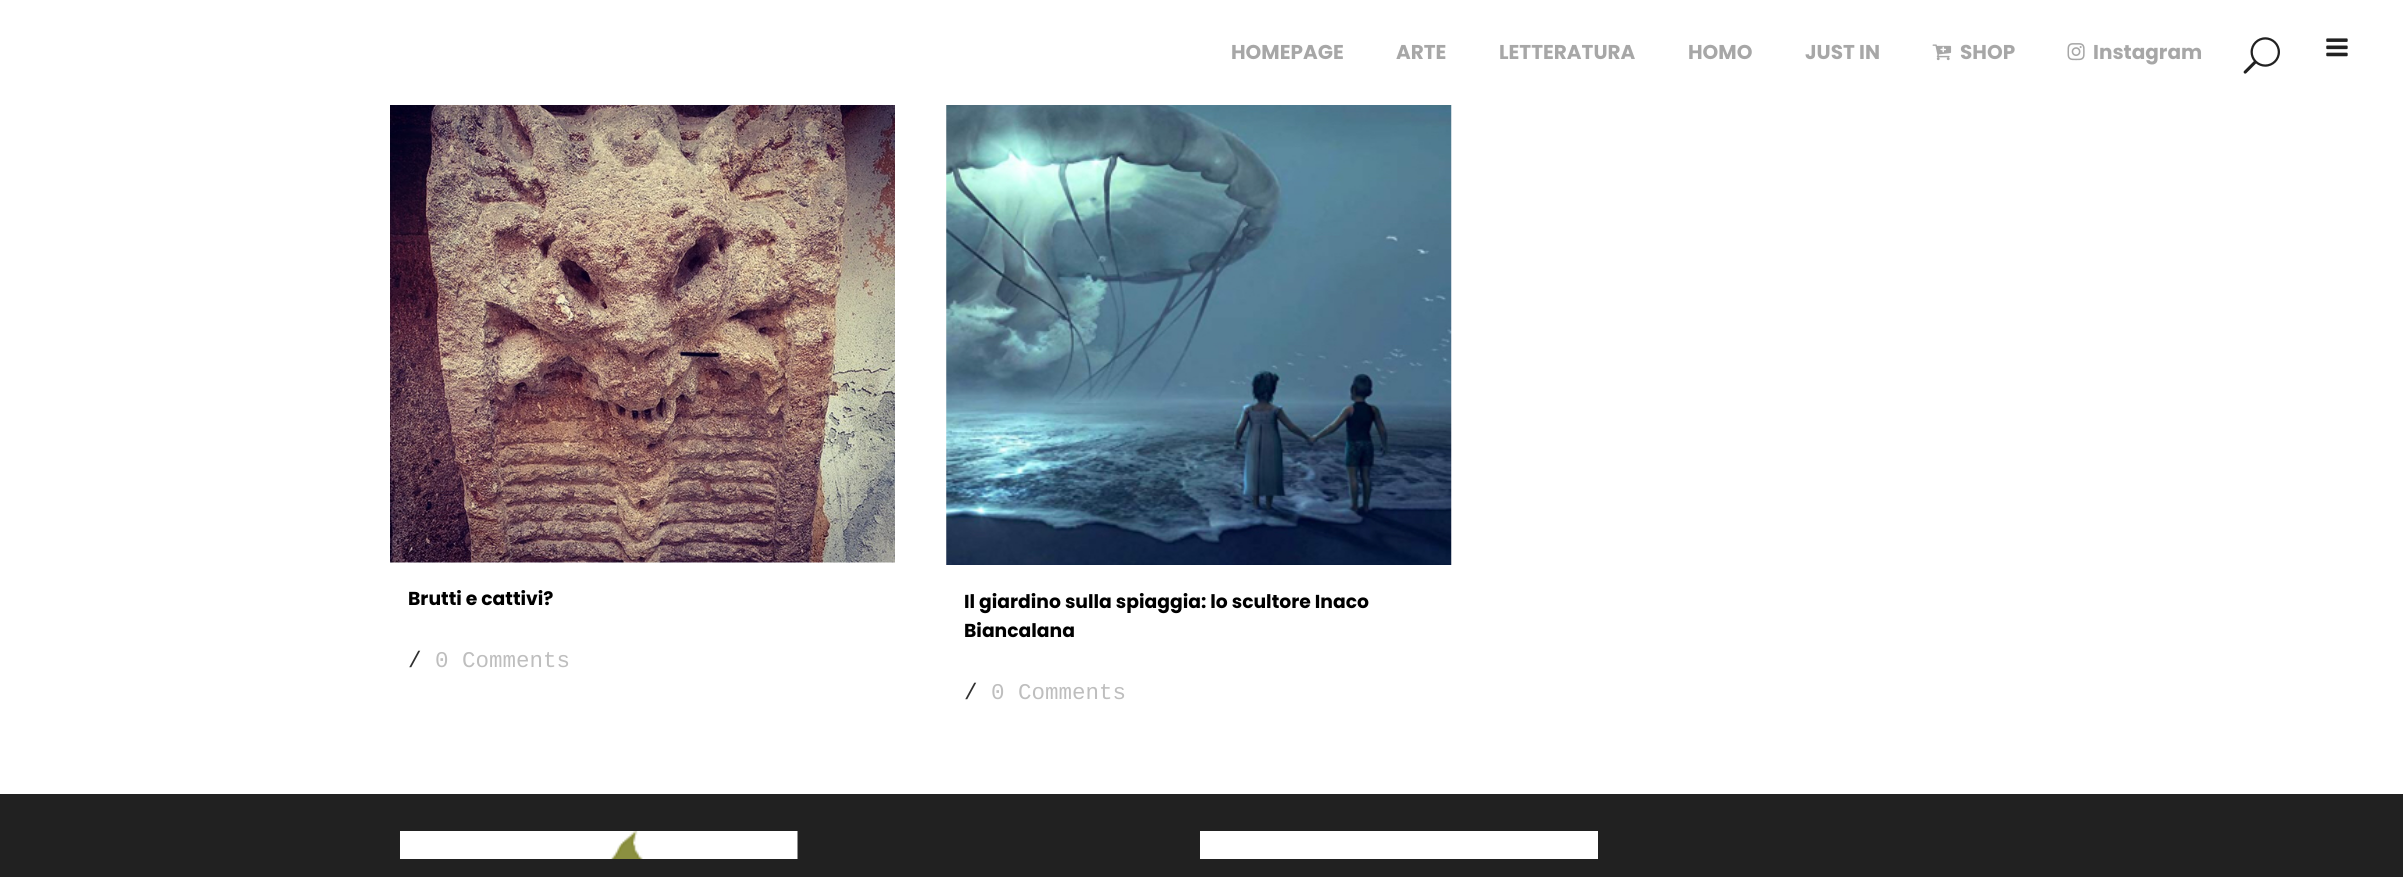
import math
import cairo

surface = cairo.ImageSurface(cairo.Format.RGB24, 2403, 877)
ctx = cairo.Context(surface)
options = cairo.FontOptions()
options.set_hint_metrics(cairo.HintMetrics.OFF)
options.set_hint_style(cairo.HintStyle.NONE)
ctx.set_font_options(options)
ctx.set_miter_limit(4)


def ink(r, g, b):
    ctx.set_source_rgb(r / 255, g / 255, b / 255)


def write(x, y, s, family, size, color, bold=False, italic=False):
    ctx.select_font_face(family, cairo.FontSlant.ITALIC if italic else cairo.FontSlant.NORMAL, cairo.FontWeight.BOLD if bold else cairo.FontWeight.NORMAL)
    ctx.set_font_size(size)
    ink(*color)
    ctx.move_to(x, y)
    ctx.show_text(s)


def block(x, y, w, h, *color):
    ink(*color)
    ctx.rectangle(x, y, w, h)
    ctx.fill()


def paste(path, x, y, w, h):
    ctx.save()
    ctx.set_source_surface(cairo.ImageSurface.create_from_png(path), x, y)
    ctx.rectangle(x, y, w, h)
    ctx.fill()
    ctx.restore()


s1 = dict(family="Poppins", size=20, color=(167, 167, 167), bold=True)
s2 = dict(family="Poppins", size=18.75, color=(0, 0, 0), bold=True)
s3 = dict(family="Liberation Mono", size=22.5, color=(48, 48, 48))
s4 = dict(family="Liberation Mono", size=22.5, color=(190, 190, 190))

ink(255, 255, 255)
ctx.paint()
write(1231, 59, "HOMEPAGE", **s1)
write(1396, 59, "ARTE", **s1)
write(1499, 59, "LETTERATURA", **s1)
write(1688, 59, "HOMO", **s1)
write(1805, 59, "JUST IN", **s1)
paste("pic1.png", 1932, 44, 20, 17)
write(1960, 59, "SHOP", **s1)
paste("pic2.png", 2067, 43, 18, 18)
write(2093, 59, "Instagram", **s1)
paste("pic3.png", 2243, 37, 37, 37)
paste("pic4.png", 2326, 38, 22, 19)
paste("pic5.png", 390, 105, 505, 458)
write(408, 605, "Brutti e cattivi?", **s2)
write(408, 667, "/", **s3)
write(435, 667, "0 Comments", **s4)
paste("pic6.png", 946, 105, 506, 460)
write(964, 608, "Il giardino sulla spiaggia: lo scultore Inaco", **s2)
write(964, 637, "Biancalana", **s2)
write(964, 699, "/", **s3)
write(991, 699, "0 Comments", **s4)
block(0, 794, 2403, 83, 33, 33, 33)
paste("pic7.png", 400, 831, 398, 28)
block(1200, 831, 398, 28, 255, 255, 255)
surface.write_to_png("screenshot.png")
